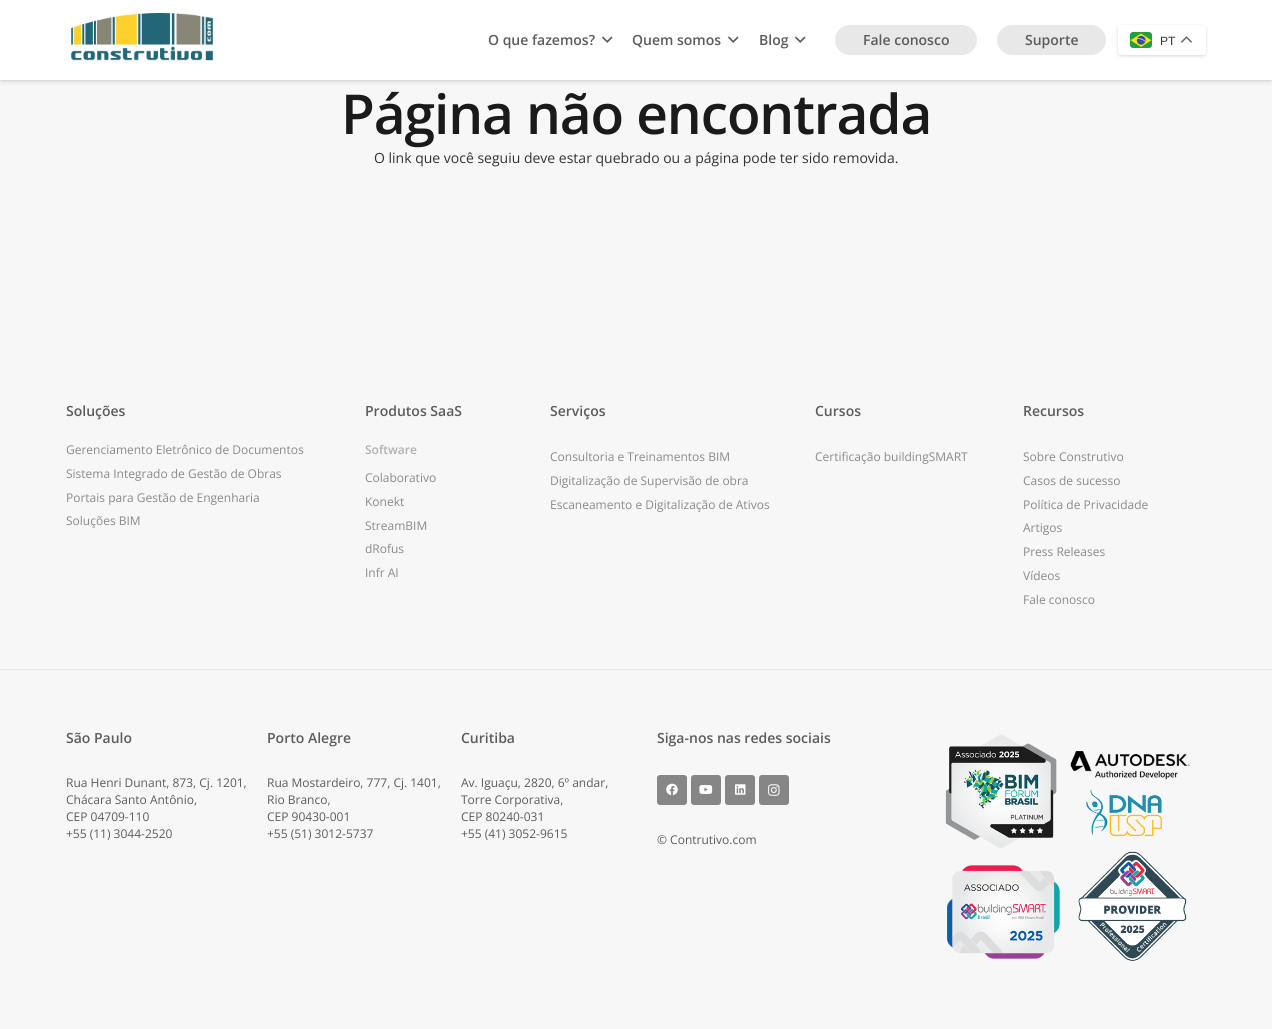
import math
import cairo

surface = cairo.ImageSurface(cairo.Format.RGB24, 1272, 1029)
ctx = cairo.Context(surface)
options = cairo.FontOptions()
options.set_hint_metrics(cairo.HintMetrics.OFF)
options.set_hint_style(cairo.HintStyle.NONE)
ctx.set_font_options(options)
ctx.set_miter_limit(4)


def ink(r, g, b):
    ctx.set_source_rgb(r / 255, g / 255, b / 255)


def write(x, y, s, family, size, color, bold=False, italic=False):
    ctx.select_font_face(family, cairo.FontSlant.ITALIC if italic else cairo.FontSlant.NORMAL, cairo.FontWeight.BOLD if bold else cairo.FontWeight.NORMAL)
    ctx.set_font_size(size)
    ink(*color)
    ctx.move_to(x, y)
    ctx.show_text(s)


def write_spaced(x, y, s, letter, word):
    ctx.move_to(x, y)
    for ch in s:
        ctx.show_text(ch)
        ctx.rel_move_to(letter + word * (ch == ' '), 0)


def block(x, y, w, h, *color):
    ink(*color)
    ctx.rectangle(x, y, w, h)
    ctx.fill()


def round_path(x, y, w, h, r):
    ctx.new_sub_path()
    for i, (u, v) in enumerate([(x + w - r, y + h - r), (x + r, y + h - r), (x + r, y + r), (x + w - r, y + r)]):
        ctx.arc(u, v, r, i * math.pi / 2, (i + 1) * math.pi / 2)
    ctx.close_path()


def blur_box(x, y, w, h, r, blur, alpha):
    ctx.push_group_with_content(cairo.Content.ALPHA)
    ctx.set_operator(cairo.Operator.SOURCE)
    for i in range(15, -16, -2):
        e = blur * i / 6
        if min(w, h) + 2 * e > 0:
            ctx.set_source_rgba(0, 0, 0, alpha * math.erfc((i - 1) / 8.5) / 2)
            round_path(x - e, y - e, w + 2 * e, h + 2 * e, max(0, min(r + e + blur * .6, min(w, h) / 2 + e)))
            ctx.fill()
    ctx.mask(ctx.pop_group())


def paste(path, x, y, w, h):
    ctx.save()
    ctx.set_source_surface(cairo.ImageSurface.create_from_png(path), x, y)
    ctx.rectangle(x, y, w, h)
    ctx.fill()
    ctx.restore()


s1 = dict(family="Open Sans SemiBold", size=14, color=(92, 92, 92))
s2 = dict(family="Liberation Sans", size=12, color=(51, 51, 51))
s3 = dict(family="Open Sans", size=14, color=(51, 51, 51))
s4 = dict(family="Open Sans", size=12, color=(138, 138, 138))
s5 = dict(family="Open Sans SemiBold", size=12, color=(176, 176, 176))
s6 = dict(family="Open Sans", size=12, color=(92, 92, 92))

ink(247, 247, 247)
ctx.paint()
ink(0, 0, 0)
blur_box(1, 3, 1270, 78, 0, 0.5, 0.05)
blur_box(1, 4, 1270, 78, 0, 2.5, 0.1)
block(0, 0, 1272, 80, 255, 255, 255)
paste("pic1.png", 71, 13, 142, 48)
write(488, 45, "O que fazemos?", **s1)
paste("pic2.png", 602, 36, 11, 7)
write(632, 45, "Quem somos", **s1)
paste("pic2.png", 728, 36, 11, 7)
write(759, 45, "Blog", **s1)
paste("pic2.png", 795, 36, 11, 7)
ink(232, 232, 232)
round_path(835, 25, 142, 30, 15)
ctx.fill()
write(863, 45, "Fale conosco", **s1)
ink(232, 232, 232)
round_path(997, 25, 109, 30, 15)
ctx.fill()
write(1025, 45, "Suporte", **s1)
ink(0, 0, 0)
blur_box(1118, 26, 88, 30, 3, 1.5, 0.15)
ink(255, 255, 255)
round_path(1118, 25, 88, 30, 3)
ctx.fill()
paste("pic3.png", 1130, 32, 22, 16)
write(1160, 45, "PT", **s2)
paste("pic4.png", 1181, 36, 11, 7)
ctx.select_font_face("Open Sans SemiBold")
ctx.set_font_size(55)
ink(26, 26, 26)
write_spaced(341, 134, "Página não encontrada", -1.1, 0)
write(374, 163, "O link que você seguiu deve estar quebrado ou a página pode ter sido removida.", **s3)
write(66, 416, "Soluções", **s1)
write(66, 454, "Gerenciamento Eletrônico de Documentos", **s4)
write(66, 478, "Sistema Integrado de Gestão de Obras", **s4)
write(66, 502, "Portais para Gestão de Engenharia", **s4)
write(66, 525, "Soluções BIM", **s4)
write(365, 416, "Produtos SaaS", **s1)
write(365, 454, "Software", **s5)
write(365, 482, "Colaborativo", **s4)
write(365, 506, "Konekt", **s4)
write(365, 530, "StreamBIM", **s4)
write(365, 553, "dRofus", **s4)
write(365, 577, "Infr AI", **s4)
write(550, 416, "Serviços", **s1)
write(550, 461, "Consultoria e Treinamentos BIM", **s4)
write(550, 485, "Digitalização de Supervisão de obra", **s4)
write(550, 509, "Escaneamento e Digitalização de Ativos", **s4)
write(815, 416, "Cursos", **s1)
write(815, 461, "Certificação buildingSMART", **s4)
write(1023, 416, "Recursos", **s1)
write(1023, 461, "Sobre Construtivo", **s4)
write(1023, 485, "Casos de sucesso", **s4)
write(1023, 509, "Política de Privacidade", **s4)
write(1023, 532, "Artigos", **s4)
write(1023, 556, "Press Releases", **s4)
write(1023, 580, "Vídeos", **s4)
write(1023, 604, "Fale conosco", **s4)
block(0, 669, 1272, 1, 232, 232, 232)
write(66, 743, "São Paulo", **s1)
write(66, 787, "Rua Henri Dunant, 873, Cj. 1201,", **s6)
write(66, 804, "Chácara Santo Antônio,", **s6)
write(66, 821, "CEP 04709-110", **s6)
write(66, 838, "+55 (11) 3044-2520", **s6)
write(267, 743, "Porto Alegre", **s1)
write(267, 787, "Rua Mostardeiro, 777, Cj. 1401,", **s6)
write(267, 804, "Rio Branco,", **s6)
write(267, 821, "CEP 90430-001", **s6)
write(267, 838, "+55 (51) 3012-5737", **s6)
write(461, 743, "Curitiba", **s1)
write(461, 787, "Av. Iguaçu, 2820, 6º andar,", **s6)
write(461, 804, "Torre Corporativa,", **s6)
write(461, 821, "CEP 80240-031", **s6)
write(461, 838, "+55 (41) 3052-9615", **s6)
write(657, 743, "Siga-nos nas redes sociais", **s1)
ink(134, 134, 134)
round_path(657, 775, 30, 30, 3)
ctx.fill()
paste("pic5.png", 666, 783, 12, 13)
round_path(691, 775, 30, 30, 3)
ctx.fill()
paste("pic6.png", 699, 785, 14, 9)
round_path(725, 775, 30, 30, 3)
ctx.fill()
paste("pic7.png", 735, 784, 11, 11)
round_path(759, 775, 30, 30, 3)
ctx.fill()
paste("pic8.png", 768, 784, 12, 12)
write(657, 844, "© Contrutivo.com", **s6)
paste("pic9.png", 945, 734, 245, 227)
surface.write_to_png("screenshot.png")
